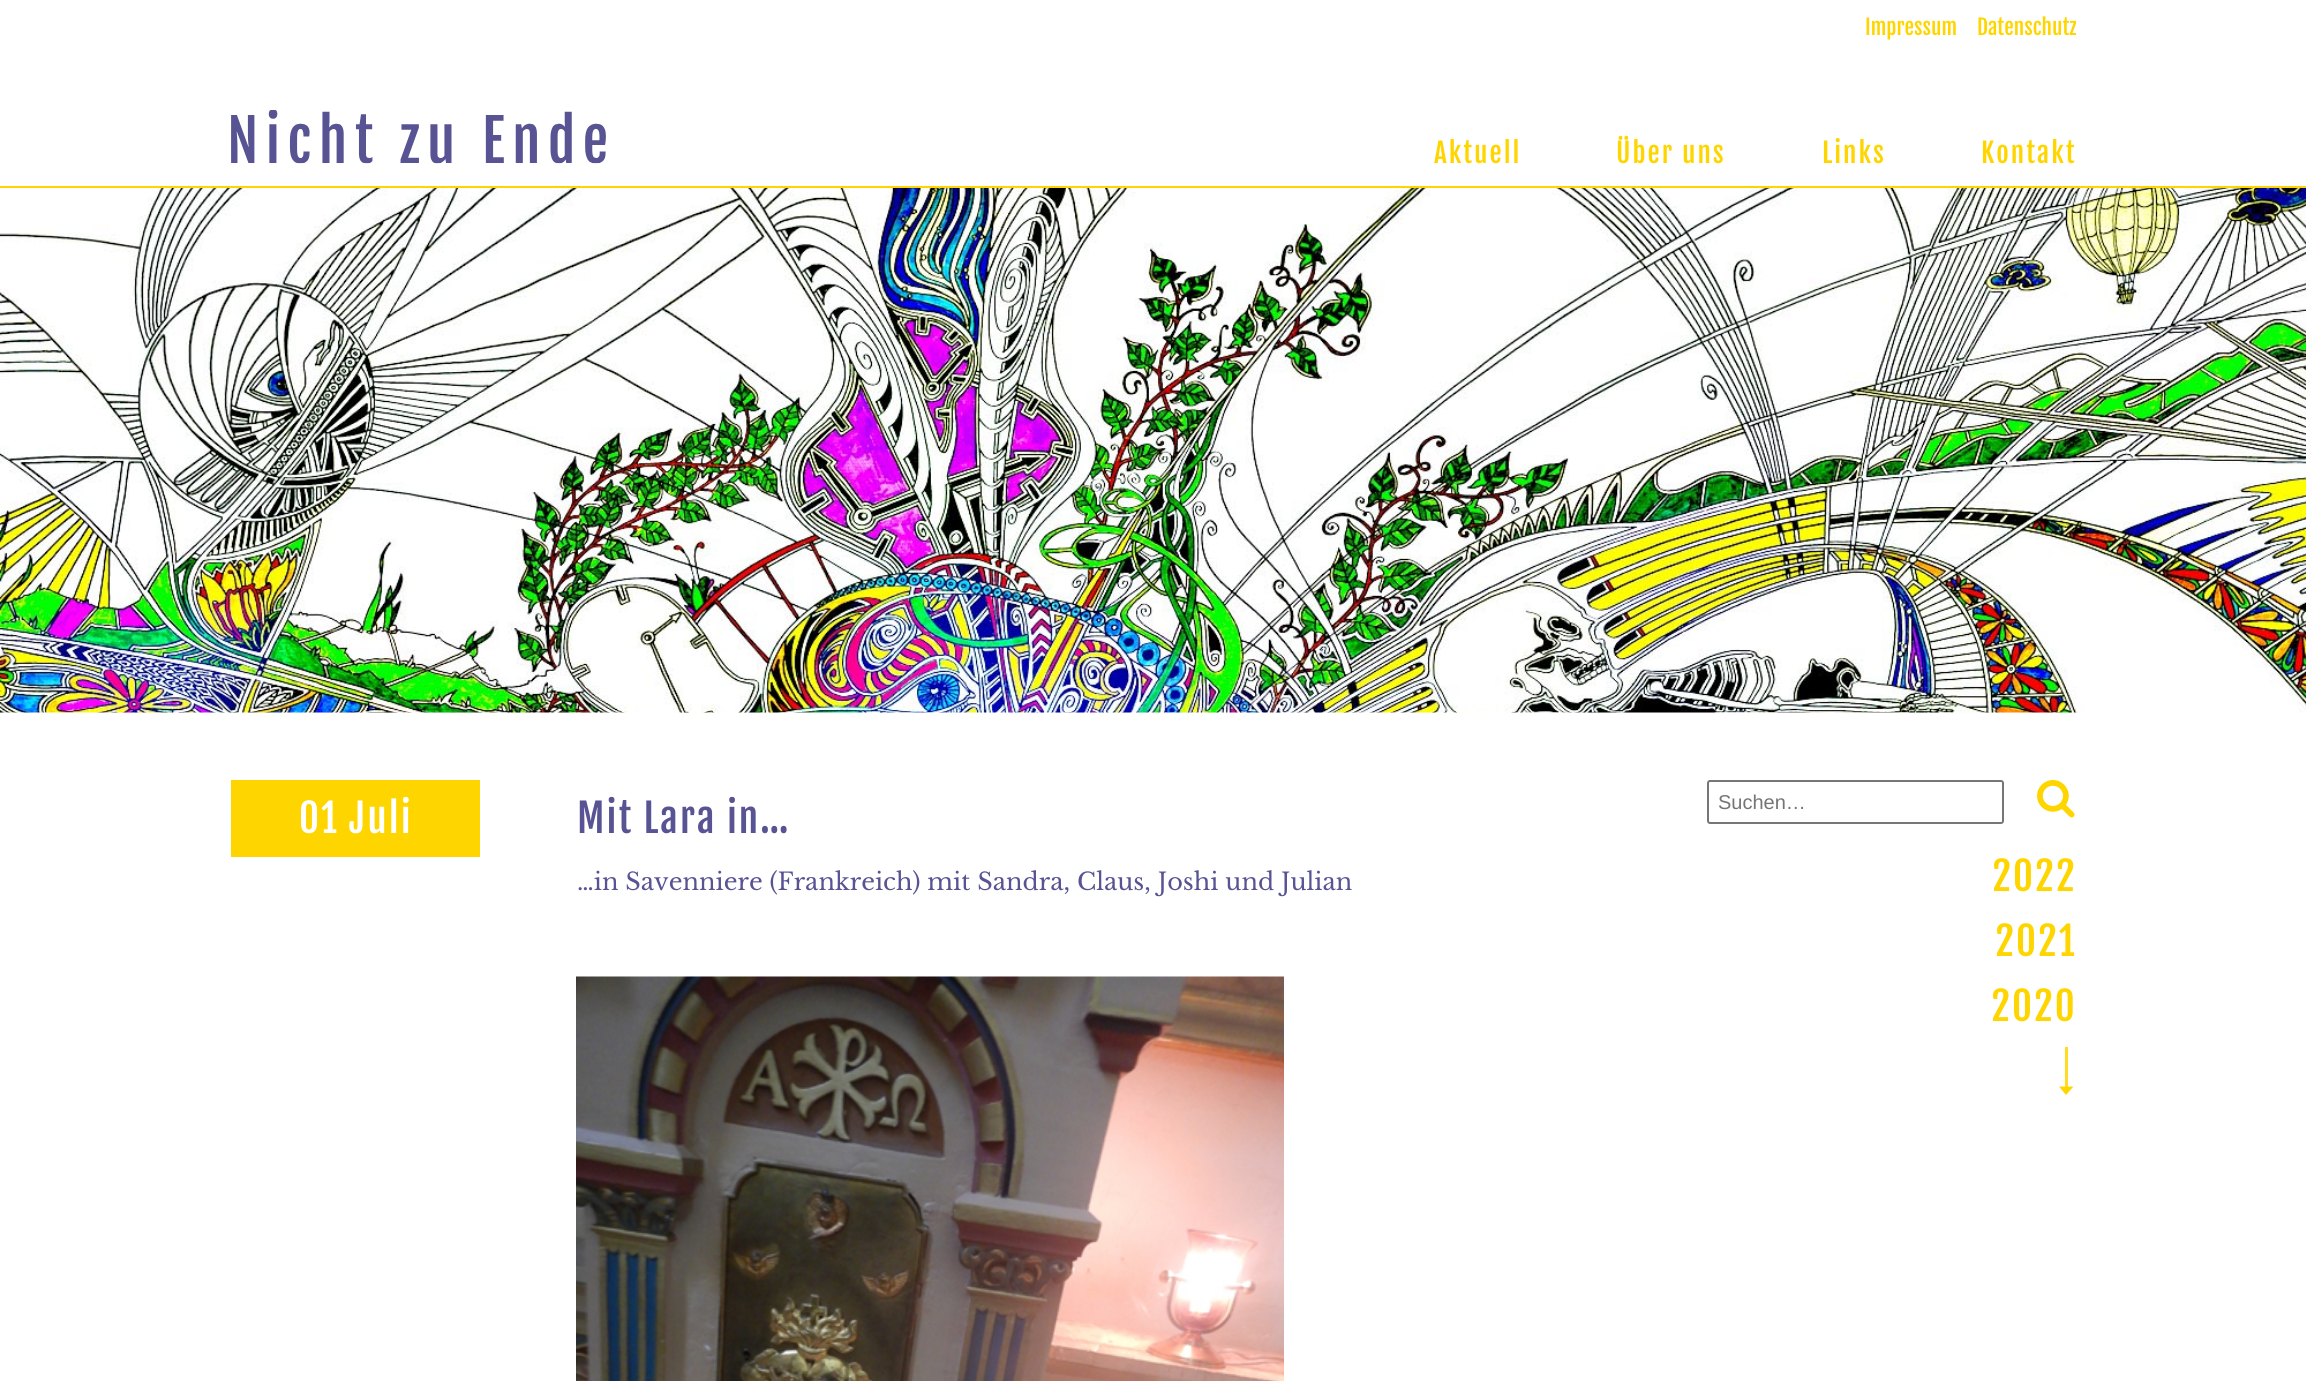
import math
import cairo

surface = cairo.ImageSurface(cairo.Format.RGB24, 2306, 1381)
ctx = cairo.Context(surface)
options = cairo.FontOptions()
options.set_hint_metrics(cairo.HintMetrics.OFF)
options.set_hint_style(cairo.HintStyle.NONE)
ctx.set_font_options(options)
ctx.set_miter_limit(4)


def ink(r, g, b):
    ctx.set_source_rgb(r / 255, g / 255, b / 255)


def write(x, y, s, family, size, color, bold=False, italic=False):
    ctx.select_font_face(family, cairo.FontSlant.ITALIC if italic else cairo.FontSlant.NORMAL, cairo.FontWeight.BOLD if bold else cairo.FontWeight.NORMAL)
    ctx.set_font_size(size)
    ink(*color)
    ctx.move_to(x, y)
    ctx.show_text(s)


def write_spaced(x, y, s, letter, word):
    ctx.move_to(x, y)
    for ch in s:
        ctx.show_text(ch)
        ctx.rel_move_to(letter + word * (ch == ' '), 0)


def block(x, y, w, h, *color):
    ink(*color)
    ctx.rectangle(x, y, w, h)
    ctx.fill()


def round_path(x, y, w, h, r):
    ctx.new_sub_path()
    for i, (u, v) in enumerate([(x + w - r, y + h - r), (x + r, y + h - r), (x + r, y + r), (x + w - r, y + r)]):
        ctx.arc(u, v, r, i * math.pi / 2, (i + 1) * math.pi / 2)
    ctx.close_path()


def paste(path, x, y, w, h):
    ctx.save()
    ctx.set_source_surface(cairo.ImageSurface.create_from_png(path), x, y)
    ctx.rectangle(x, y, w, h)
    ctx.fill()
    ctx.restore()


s1 = dict(family="Fjalla One", size=21, color=(255, 213, 0))
s2 = dict(family="Libre Baskerville", size=24, color=(88, 84, 148))
s3 = dict(family="Liberation Sans", size=20, color=(117, 117, 117))

ink(255, 255, 255)
ctx.paint()
write(1865, 35, "Impressum", **s1)
write(1977, 35, "Datenschutz", **s1)
paste("pic1.png", 231, 110, 375, 54)
ctx.set_font_size(27)
write_spaced(1434, 163, "Aktuell", 2, 0)
write_spaced(1616, 163, "Über uns", 2, 0)
write_spaced(1822, 163, "Links", 2, 0)
write_spaced(1981, 163, "Kontakt", 2, 0)
paste("pic2.png", 0, 188, 2306, 525)
block(0, 186, 2306, 2, 255, 213, 0)
block(231, 780, 249, 77, 255, 213, 0)
ctx.set_font_size(39)
ink(255, 255, 255)
write_spaced(299, 833, "01 Juli", 2, 0)
ink(88, 84, 148)
write_spaced(577, 833, "Mit Lara in…", 2, 0)
write(577, 890, "…in Savenniere (Frankreich) mit Sandra, Claus, Joshi und Julian", **s2)
paste("pic3.png", 576, 976, 708, 405)
round_path(1708, 781, 295, 42, 2)
ink(118, 118, 118)
ctx.stroke()
write(1718, 809, "Suchen…", **s3)
paste("pic4.png", 2037, 780, 38, 38)
ctx.select_font_face("Fjalla One")
ctx.set_font_size(39)
ink(255, 213, 0)
write_spaced(1992, 891, "2022", 2, 0)
write_spaced(1995, 956, "2021", 2, 0)
write_spaced(1991, 1021, "2020", 2, 0)
block(2065, 1047, 3, 42, 255, 219, 34)
ink(255, 213, 0)
ctx.new_path()
ctx.move_to(2073.5, 1086.5)
ctx.line_to(2066, 1095)
ctx.line_to(2059, 1086.5)
ctx.close_path()
ctx.fill()
surface.write_to_png("screenshot.png")
